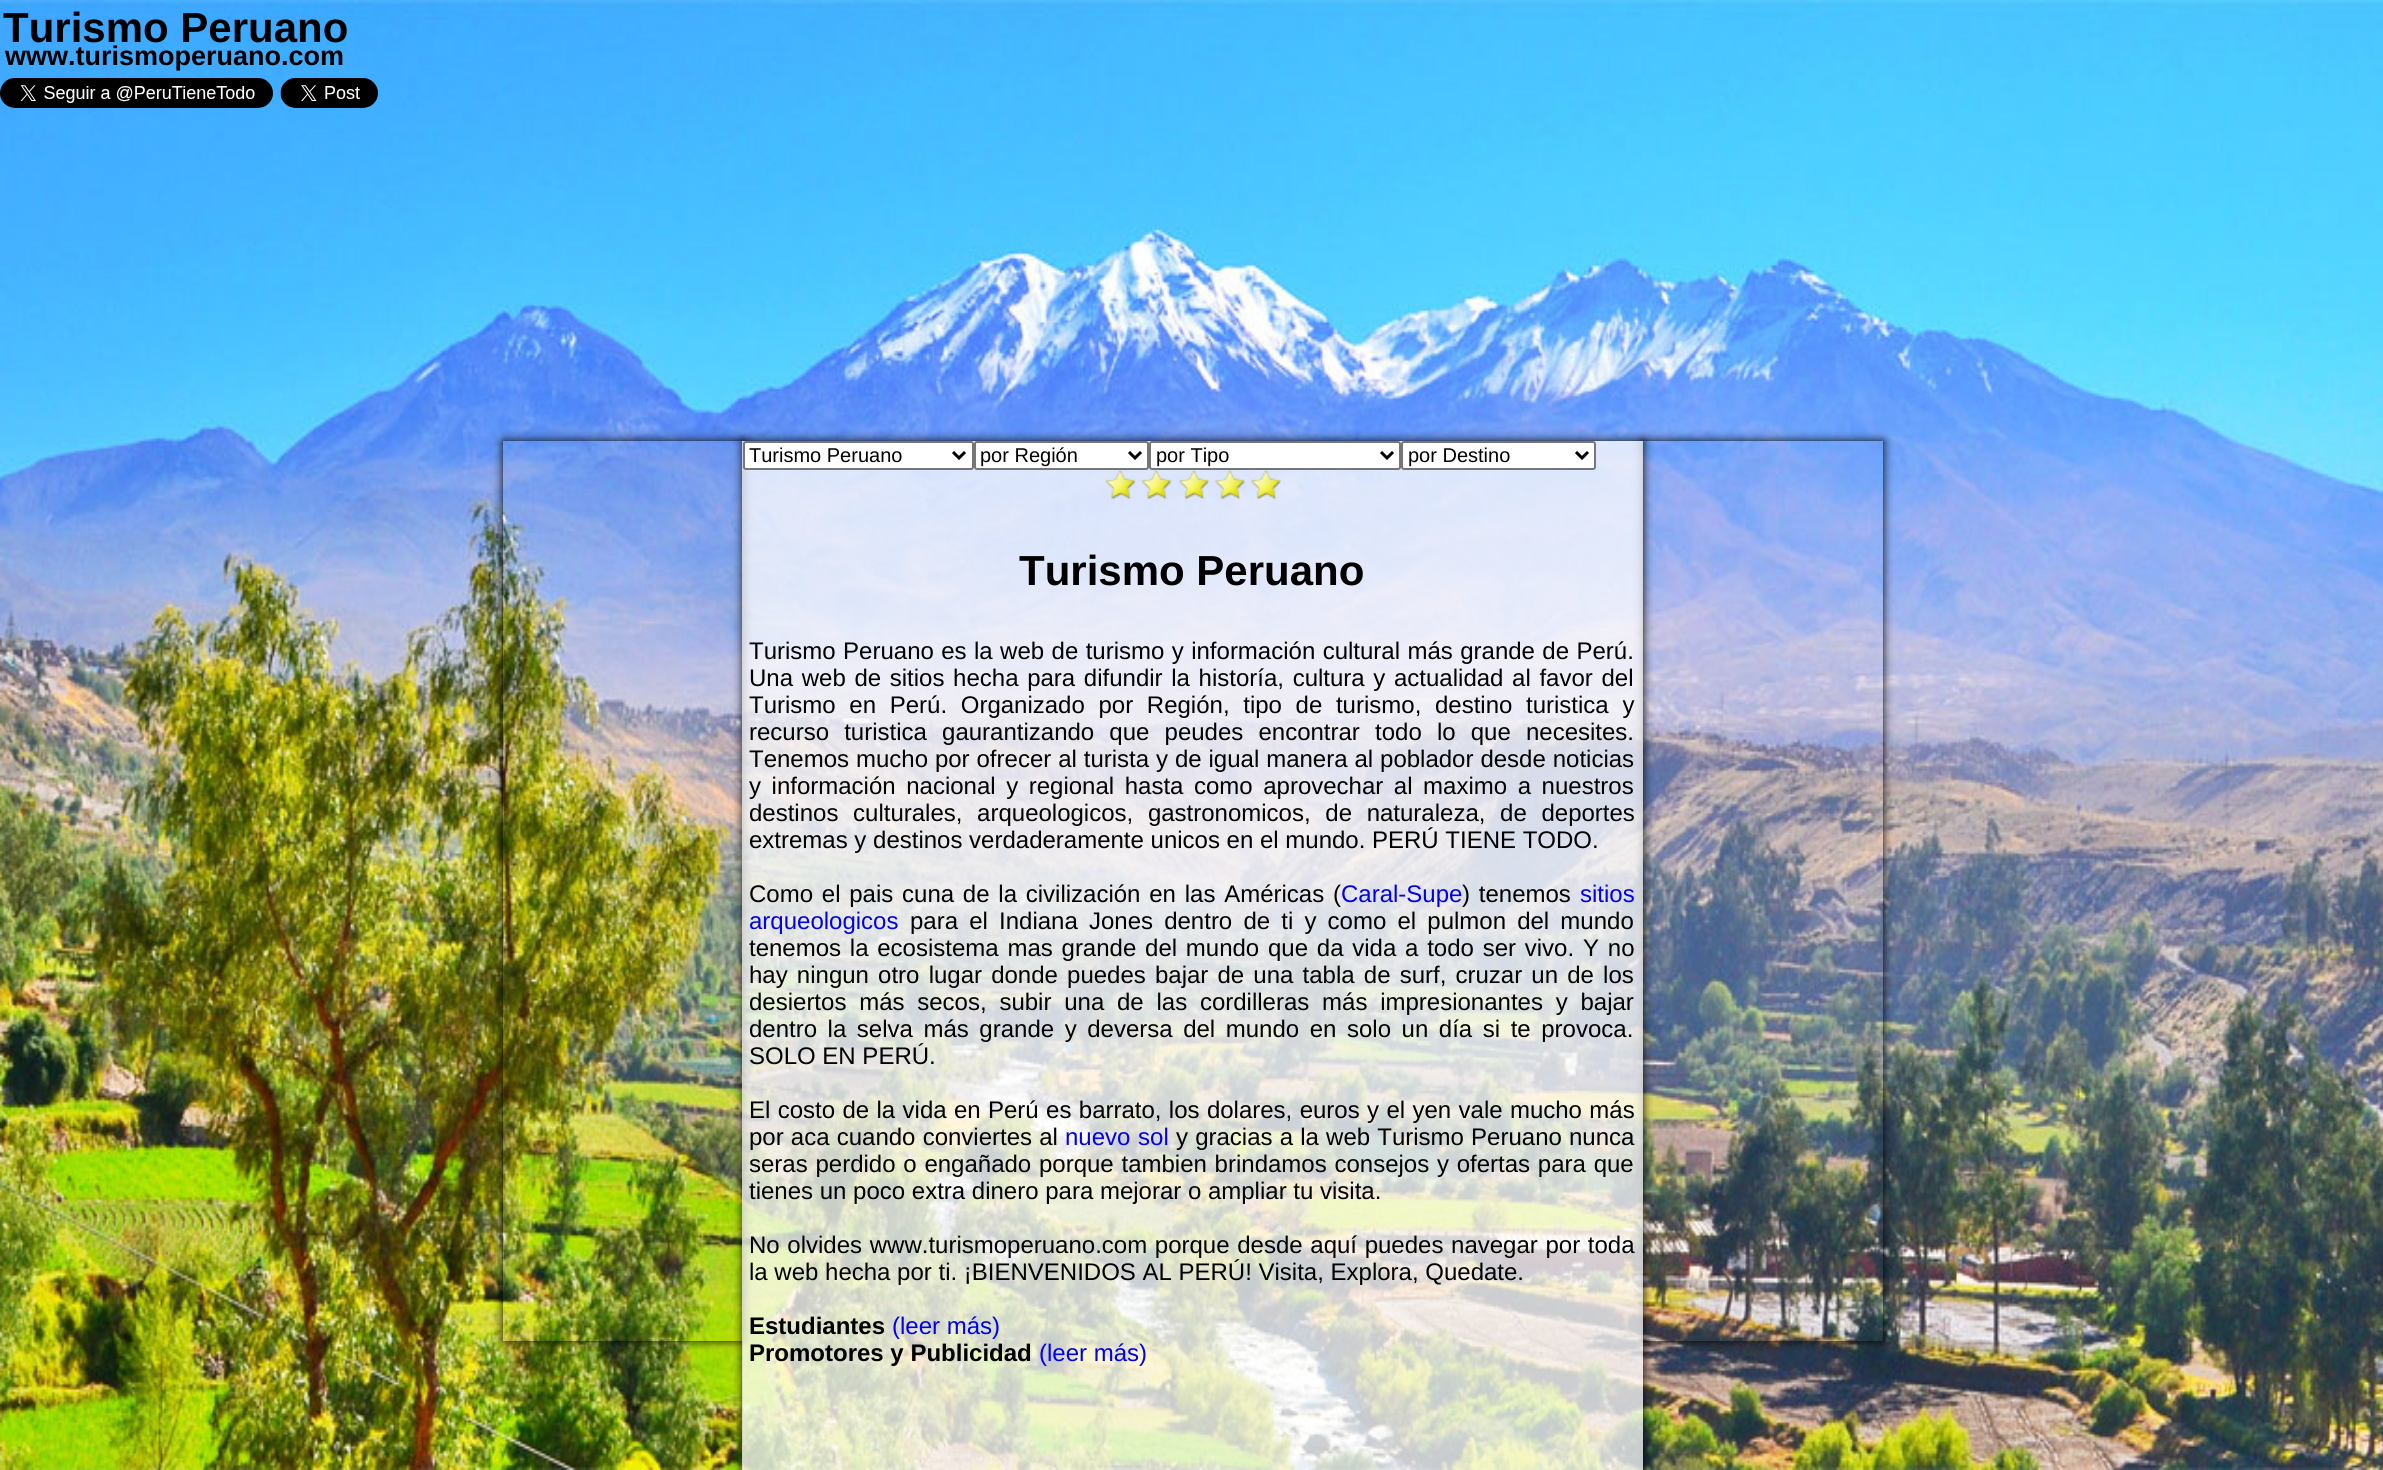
import math
import cairo

surface = cairo.ImageSurface(cairo.Format.RGB24, 2383, 1470)
ctx = cairo.Context(surface)
options = cairo.FontOptions()
options.set_hint_metrics(cairo.HintMetrics.OFF)
options.set_hint_style(cairo.HintStyle.NONE)
ctx.set_font_options(options)
ctx.set_miter_limit(4)


def ink(r, g, b):
    ctx.set_source_rgb(r / 255, g / 255, b / 255)


def write(x, y, s, family, size, color, bold=False, italic=False):
    ctx.select_font_face(family, cairo.FontSlant.ITALIC if italic else cairo.FontSlant.NORMAL, cairo.FontWeight.BOLD if bold else cairo.FontWeight.NORMAL)
    ctx.set_font_size(size)
    ink(*color)
    ctx.move_to(x, y)
    ctx.show_text(s)


def write_spaced(x, y, s, letter, word):
    ctx.move_to(x, y)
    for ch in s:
        ctx.show_text(ch)
        ctx.rel_move_to(letter + word * (ch == ' '), 0)


def round_path(x, y, w, h, r):
    ctx.new_sub_path()
    for i, (u, v) in enumerate([(x + w - r, y + h - r), (x + r, y + h - r), (x + r, y + r), (x + w - r, y + r)]):
        ctx.arc(u, v, r, i * math.pi / 2, (i + 1) * math.pi / 2)
    ctx.close_path()


def blur_box(x, y, w, h, r, blur, alpha):
    ctx.push_group_with_content(cairo.Content.ALPHA)
    ctx.set_operator(cairo.Operator.SOURCE)
    for i in range(15, -16, -2):
        e = blur * i / 6
        if min(w, h) + 2 * e > 0:
            ctx.set_source_rgba(0, 0, 0, alpha * math.erfc((i - 1) / 8.5) / 2)
            round_path(x - e, y - e, w + 2 * e, h + 2 * e, max(0, min(r + e + blur * .6, min(w, h) / 2 + e)))
            ctx.fill()
    ctx.mask(ctx.pop_group())


def paste(path, x, y, w, h):
    ctx.save()
    ctx.set_source_surface(cairo.ImageSurface.create_from_png(path), x, y)
    ctx.rectangle(x, y, w, h)
    ctx.fill()
    ctx.restore()


s1 = dict(family="Liberation Sans", size=42, color=(0, 0, 0), bold=True)
s2 = dict(family="Liberation Sans", size=27, color=(0, 0, 0), bold=True)
s3 = dict(family="Liberation Sans", size=20, color=(0, 0, 0))
s4 = dict(family="Liberation Sans", size=24, color=(0, 0, 0))
s5 = dict(family="Liberation Sans", size=24, color=(0, 0, 238))
s6 = dict(family="Liberation Sans", size=24, color=(0, 0, 0), bold=True)

ink(255, 255, 255)
ctx.paint()
paste("pic1.png", 0, 0, 2383, 1470)
write(3, 42, "Turismo Peruano", **s1)
write(5, 65, "www.turismoperuano.com", **s2)
paste("pic2.png", 0, 78, 273, 30)
paste("pic3.png", 280, 78, 98, 30)
ctx.save()
ctx.set_fill_rule(cairo.FillRule.EVEN_ODD)
ctx.new_path()
ctx.move_to(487, 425)
ctx.line_to(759, 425)
ctx.line_to(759, 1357)
ctx.line_to(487, 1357)
ctx.close_path()
ctx.move_to(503, 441)
ctx.line_to(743, 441)
ctx.line_to(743, 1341)
ctx.line_to(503, 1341)
ctx.close_path()
ctx.clip()
ink(0, 0, 0)
blur_box(503, 441, 240, 900, 0, 5, 1)
ctx.restore()
ctx.save()
ctx.set_fill_rule(cairo.FillRule.EVEN_ODD)
ctx.new_path()
ctx.move_to(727, 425)
ctx.line_to(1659, 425)
ctx.line_to(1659, 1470)
ctx.line_to(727, 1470)
ctx.close_path()
ctx.move_to(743, 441)
ctx.line_to(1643, 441)
ctx.line_to(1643, 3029)
ctx.line_to(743, 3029)
ctx.close_path()
ctx.clip()
ink(0, 0, 0)
blur_box(743, 441, 900, 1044, 0, 5, 1)
ctx.restore()
ctx.save()
ctx.set_fill_rule(cairo.FillRule.EVEN_ODD)
ctx.new_path()
ctx.move_to(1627, 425)
ctx.line_to(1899, 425)
ctx.line_to(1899, 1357)
ctx.line_to(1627, 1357)
ctx.close_path()
ctx.move_to(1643, 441)
ctx.line_to(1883, 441)
ctx.line_to(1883, 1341)
ctx.line_to(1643, 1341)
ctx.close_path()
ctx.clip()
ink(0, 0, 0)
blur_box(1643, 441, 240, 900, 0, 5, 1)
ctx.restore()
ctx.set_source_rgba(1, 1, 1, 0.75)
ctx.rectangle(742, 441, 901, 1029)
ctx.fill()
ink(255, 255, 255)
round_path(744, 442, 229, 27, 2)
ctx.fill_preserve()
ink(118, 118, 118)
ctx.stroke()
ctx.new_path()
ctx.move_to(953, 452)
ctx.line_to(959, 458)
ctx.line_to(965, 452)
ink(0, 0, 0)
ctx.set_line_width(3)
ctx.stroke()
write(749, 462, "Turismo Peruano", **s3)
ink(255, 255, 255)
round_path(975, 442, 173, 27, 2)
ctx.fill_preserve()
ink(118, 118, 118)
ctx.set_line_width(2)
ctx.stroke()
ctx.new_path()
ctx.move_to(1129, 452)
ctx.line_to(1135, 458)
ctx.line_to(1141, 452)
ink(0, 0, 0)
ctx.set_line_width(3)
ctx.stroke()
write(980, 462, "por Región", **s3)
ink(255, 255, 255)
round_path(1150, 442, 250, 27, 2)
ctx.fill_preserve()
ink(118, 118, 118)
ctx.set_line_width(2)
ctx.stroke()
ctx.new_path()
ctx.move_to(1381, 452)
ctx.line_to(1387, 458)
ctx.line_to(1393, 452)
ink(0, 0, 0)
ctx.set_line_width(3)
ctx.stroke()
write(1156, 462, "por Tipo", **s3)
ink(255, 255, 255)
round_path(1402, 442, 193, 27, 2)
ctx.fill_preserve()
ink(118, 118, 118)
ctx.set_line_width(2)
ctx.stroke()
ctx.new_path()
ctx.move_to(1576, 452)
ctx.line_to(1582, 458)
ctx.line_to(1588, 452)
ink(0, 0, 0)
ctx.set_line_width(3)
ctx.stroke()
write(1408, 462, "por Destino", **s3)
paste("pic4.png", 1105, 470, 31, 30)
paste("pic5.png", 1141, 470, 31, 30)
paste("pic6.png", 1179, 470, 30, 30)
paste("pic7.png", 1215, 470, 30, 30)
paste("pic8.png", 1251, 470, 30, 30)
write(1019, 585, "Turismo Peruano", **s1)
ctx.select_font_face("Liberation Sans")
ctx.set_font_size(24)
write_spaced(749, 659, "Turismo Peruano es la web de turismo y información cultural más grande de Perú.", 0, 0.75)
write_spaced(749, 686, "Una web de sitios hecha para difundir la historía, cultura y actualidad al favor del", 0, 2)
write_spaced(749, 713, "Turismo en Perú. Organizado por Región, tipo de turismo, destino turistica y", 0, 7)
write_spaced(749, 740, "recurso turistica gaurantizando que peudes encontrar todo lo que necesites.", 0, 8.5)
write_spaced(749, 767, "Tenemos mucho por ofrecer al turista y de igual manera al poblador desde noticias", 0, 0.25)
write_spaced(749, 794, "y información nacional y regional hasta como aprovechar al maximo a nuestros", 0, 3.9)
write_spaced(749, 821, "destinos culturales, arqueologicos, gastronomicos, de naturaleza, de deportes", 0, 8)
write(749, 848, "extremas y destinos verdaderamente unicos en el mundo. PERÚ TIENE TODO.", **s4)
write_spaced(749, 902, "Como el pais cuna de la civilización en las Américas (", 0, 2.1)
write(1341, 902, "Caral-Supe", **s5)
ink(0, 0, 0)
write_spaced(1462, 902, ") tenemos", 0, 2.1)
write(1580, 902, "sitios", **s5)
write(749, 929, "arqueologicos", **s5)
ink(0, 0, 0)
write_spaced(910, 929, "para el Indiana Jones dentro de ti y como el pulmon del mundo", 0, 4.5)
write_spaced(749, 956, "tenemos la ecosistema mas grande del mundo que da vida a todo ser vivo.", 0, 2.1)
write_spaced(1583, 956, "Y no", 0, 2.1)
write_spaced(749, 983, "hay ningun otro lugar donde puedes bajar de una tabla de surf, cruzar un de los", 0, 2.5)
write_spaced(749, 1010, "desiertos más secos, subir una de las cordilleras más impresionantes y bajar", 0, 6.1)
write_spaced(749, 1037, "dentro la selva más grande y deversa del mundo en solo un día si te provoca.", 0, 3.9)
write(749, 1064, "SOLO EN PERÚ.", **s4)
write_spaced(749, 1118, "El costo de la vida en Perú es barrato, los dolares, euros y el yen vale mucho más", 0, 0.7)
write_spaced(749, 1145, "por aca cuando conviertes al", 0, 0.5)
ink(0, 0, 238)
write_spaced(1065, 1145, "nuevo sol", 0, 1)
ink(0, 0, 0)
write_spaced(1176, 1145, "y gracias a la web Turismo Peruano nunca", 0, 0.5)
write_spaced(749, 1172, "seras perdido o engañado porque tambien brindamos consejos y ofertas para que", 0, 1.1)
write(749, 1199, "tienes un poco extra dinero para mejorar o ampliar tu visita.", **s4)
write_spaced(749, 1253, "No olvides www.turismoperuano.com porque desde aquí puedes navegar por toda", 0, 1)
write(749, 1280, "la web hecha por ti. ¡BIENVENIDOS AL PERÚ! Visita, Explora, Quedate.", **s4)
write(749, 1334, "Estudiantes", **s6)
write(892, 1334, "(leer más)", **s5)
write(749, 1361, "Promotores y Publicidad", **s6)
write(1039, 1361, "(leer más)", **s5)
surface.write_to_png("screenshot.png")
